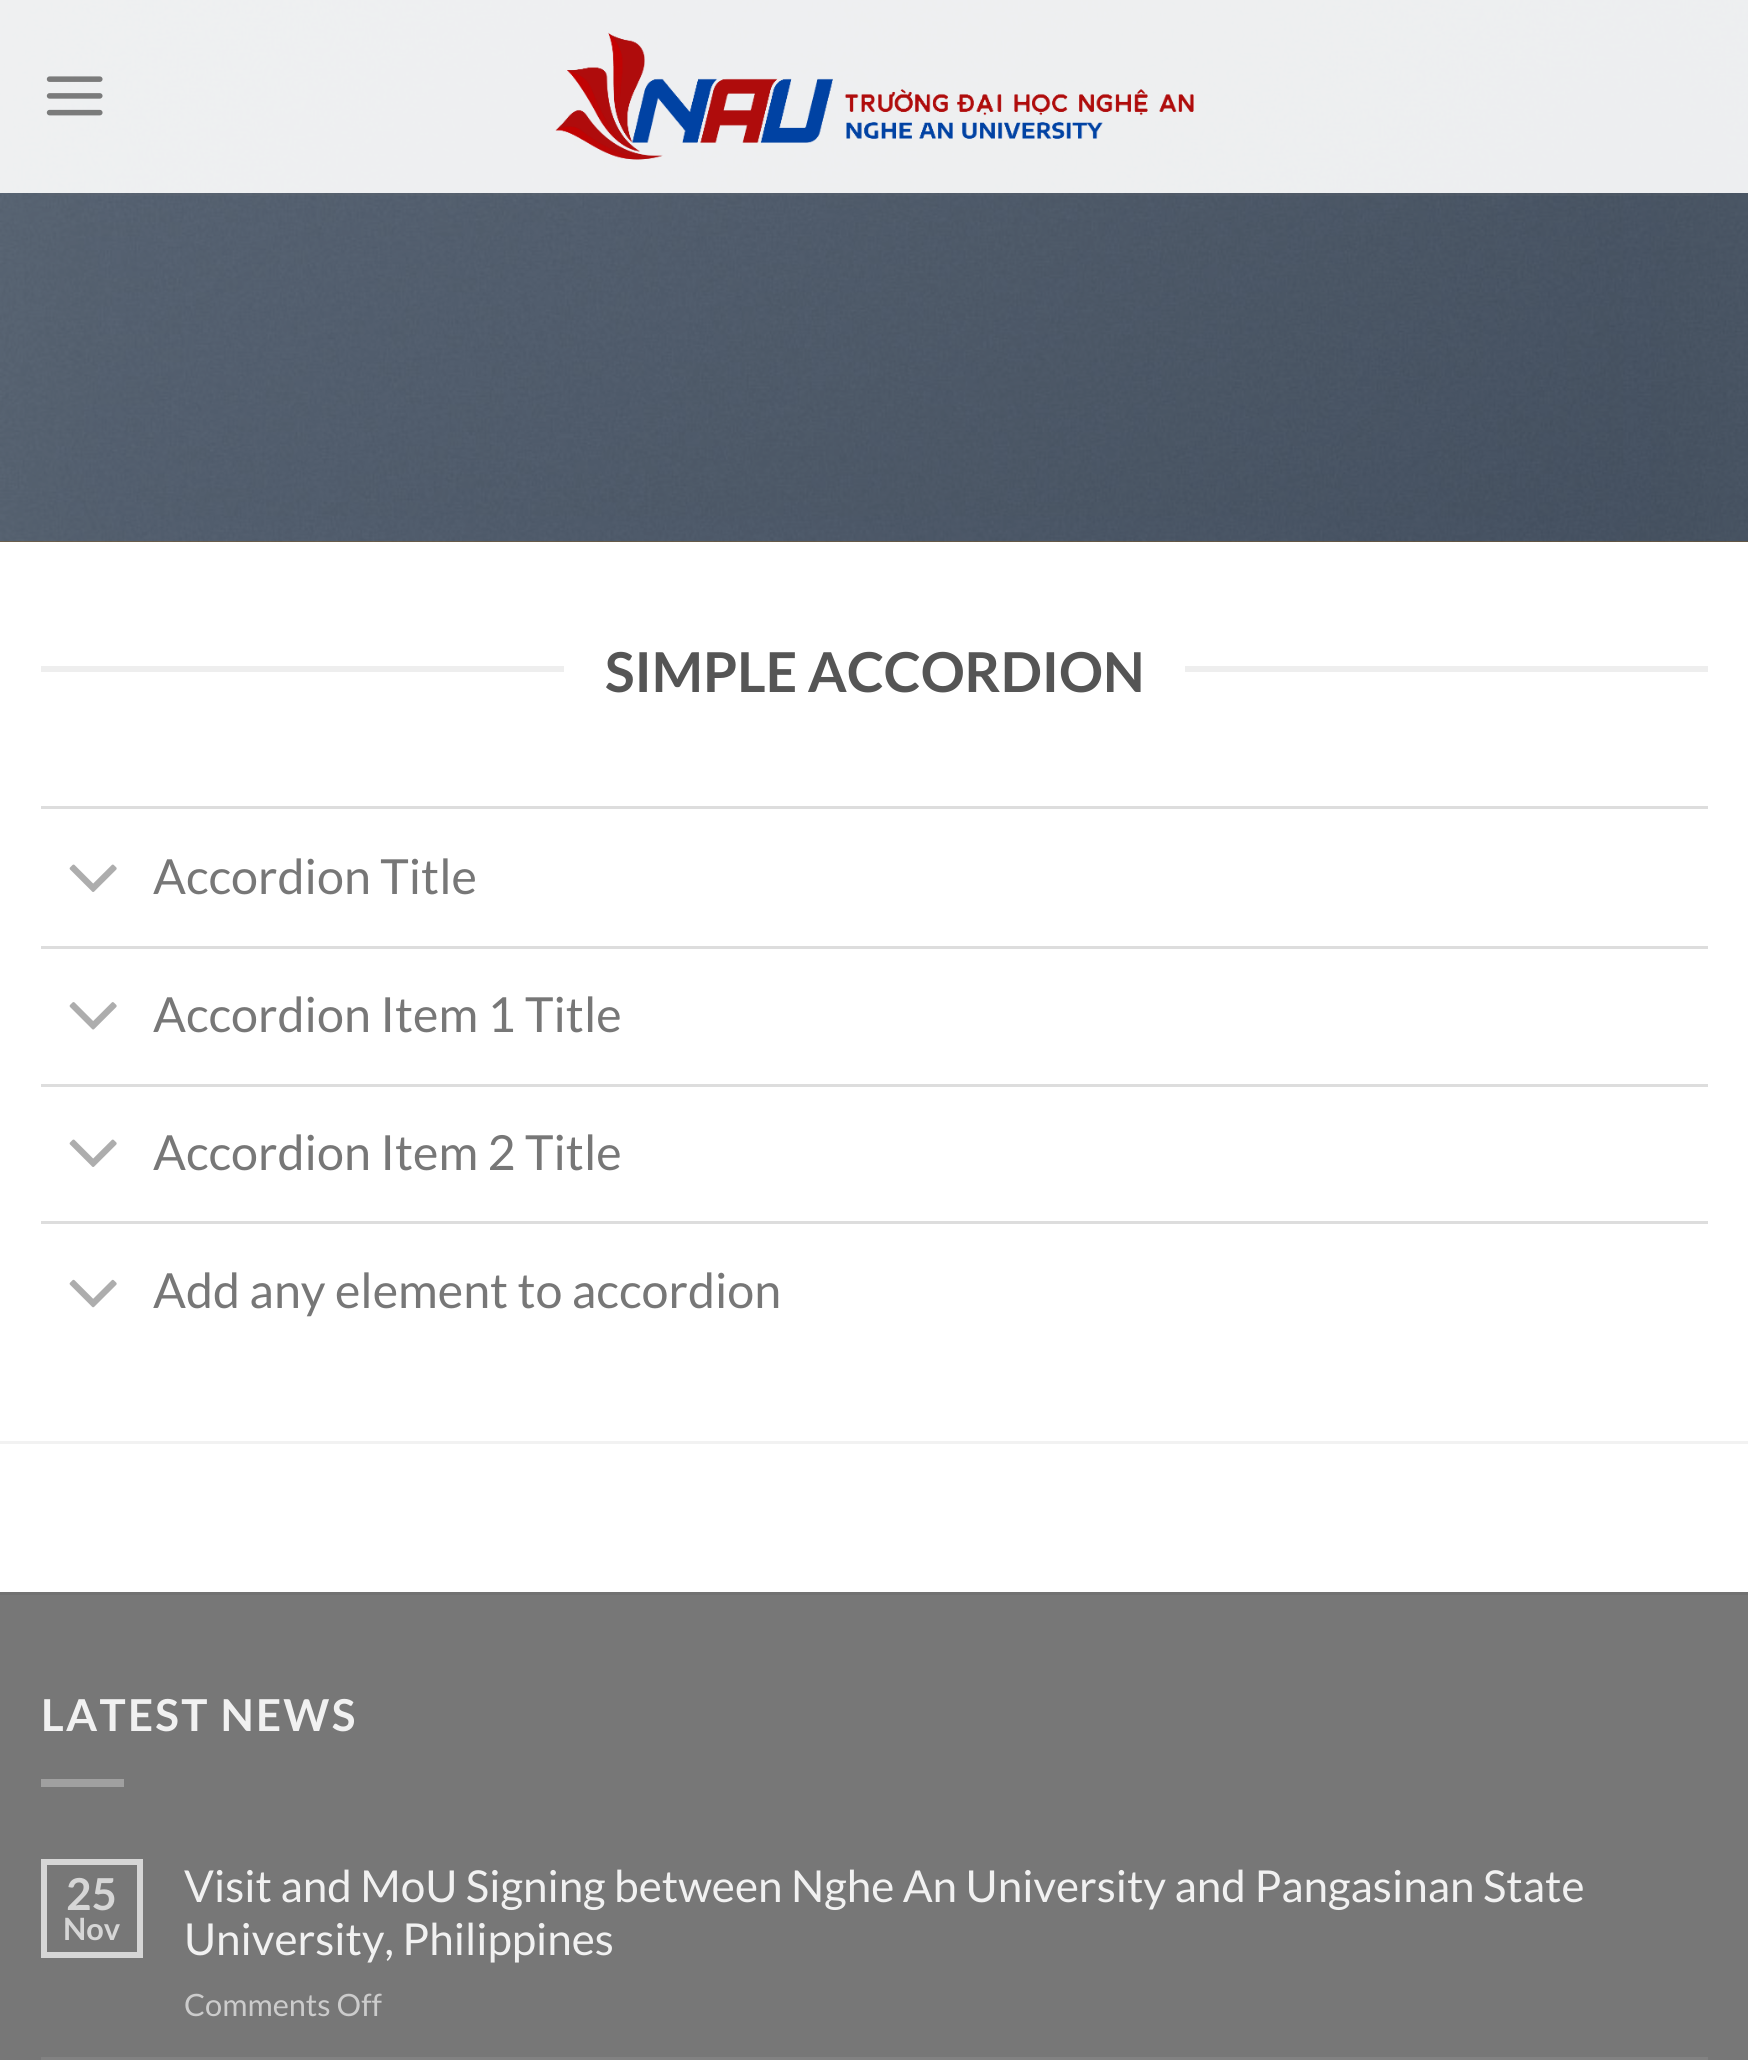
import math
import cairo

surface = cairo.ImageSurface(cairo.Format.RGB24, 1748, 2060)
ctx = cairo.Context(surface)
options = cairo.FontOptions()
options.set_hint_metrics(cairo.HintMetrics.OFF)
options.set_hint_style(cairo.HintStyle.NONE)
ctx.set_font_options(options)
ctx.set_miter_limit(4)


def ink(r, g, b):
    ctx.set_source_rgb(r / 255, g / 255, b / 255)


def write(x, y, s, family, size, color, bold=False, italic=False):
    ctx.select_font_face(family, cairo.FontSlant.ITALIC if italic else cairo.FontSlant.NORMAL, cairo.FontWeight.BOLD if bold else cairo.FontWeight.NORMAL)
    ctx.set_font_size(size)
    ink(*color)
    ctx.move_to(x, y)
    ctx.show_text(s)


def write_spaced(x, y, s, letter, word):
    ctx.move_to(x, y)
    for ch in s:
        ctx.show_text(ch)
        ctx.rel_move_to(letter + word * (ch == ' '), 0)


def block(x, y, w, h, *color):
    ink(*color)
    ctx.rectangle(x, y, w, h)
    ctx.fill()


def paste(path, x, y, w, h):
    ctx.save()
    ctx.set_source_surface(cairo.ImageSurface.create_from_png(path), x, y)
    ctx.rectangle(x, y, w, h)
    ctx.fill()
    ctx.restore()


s1 = dict(family="Lato", size=55, color=(85, 85, 85), bold=True)
s2 = dict(family="Lato", size=48.4, color=(119, 119, 119))
s3 = dict(family="Lato", size=44, color=(214, 214, 214), bold=True)
s4 = dict(family="Lato", size=30.75, color=(214, 214, 214), bold=True)
s5 = dict(family="Lato", size=44, color=(241, 241, 241))
s6 = dict(family="Lato", size=30.75, color=(204, 204, 204))

ink(255, 255, 255)
ctx.paint()
block(0, 541, 1748, 1, 130, 90, 30)
paste("pic3.png", 0, 0, 1748, 542)
ctx.set_source_rgba(1, 1, 1, 0.9)
ctx.rectangle(0, 0, 1748, 193)
ctx.fill()
paste("pic1.png", 46, 76, 57, 40)
paste("pic2.png", 555, 32, 639, 128)
ctx.set_source_rgba(0.467, 0.467, 0.467, 0.1)
ctx.rectangle(41, 193, 1667, 3)
ctx.fill()
block(41, 666, 523, 6, 238, 238, 238)
write(605, 692, "SIMPLE ACCORDION", **s1)
block(1185, 666, 523, 6, 238, 238, 238)
block(41, 806, 1667, 3, 221, 221, 221)
paste("pic4.png", 69, 864, 48, 28)
write(153, 894, "Accordion Title", **s2)
block(41, 946, 1667, 3, 221, 221, 221)
paste("pic5.png", 69, 1002, 48, 28)
write(153, 1032, "Accordion Item 1 Title", **s2)
block(41, 1084, 1667, 3, 221, 221, 221)
paste("pic4.png", 69, 1139, 48, 28)
write(153, 1170, "Accordion Item 2 Title", **s2)
block(41, 1221, 1667, 3, 221, 221, 221)
paste("pic6.png", 69, 1279, 48, 29)
write(153, 1308, "Add any element to accordion", **s2)
block(0, 1441, 1748, 3, 242, 242, 242)
block(0, 1595, 1748, 465, 119, 119, 119)
block(0, 1592, 1748, 3, 113, 113, 113)
ctx.select_font_face("Lato", cairo.FontSlant.NORMAL, cairo.FontWeight.BOLD)
ctx.set_font_size(44)
ink(241, 241, 241)
write_spaced(41, 1731, "LATEST NEWS", 2.25, 0)
block(41, 1779, 83, 8, 160, 160, 160)
ctx.rectangle(44, 1862, 96, 93)
ink(214, 214, 214)
ctx.set_line_width(6)
ctx.stroke()
write(66, 1910, "25", **s3)
write(63, 1940, "Nov", **s4)
write(184, 1902, "Visit and MoU Signing between Nghe An University and Pangasinan State", **s5)
write(184, 1955, "University, Philippines", **s5)
write(184, 2016, "Comments Off", **s6)
block(41, 2057, 1667, 3, 130, 130, 130)
surface.write_to_png("screenshot.png")
